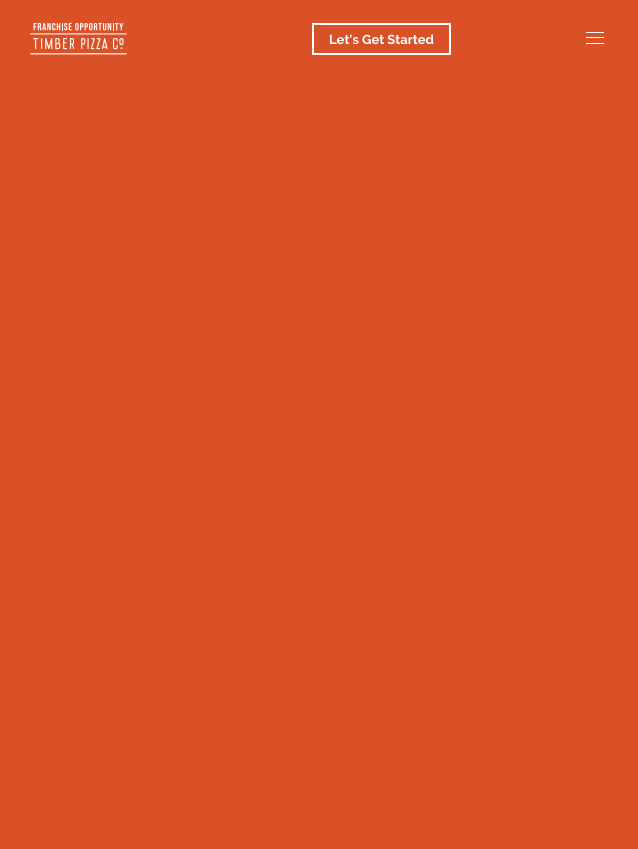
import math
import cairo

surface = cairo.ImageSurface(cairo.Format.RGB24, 638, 849)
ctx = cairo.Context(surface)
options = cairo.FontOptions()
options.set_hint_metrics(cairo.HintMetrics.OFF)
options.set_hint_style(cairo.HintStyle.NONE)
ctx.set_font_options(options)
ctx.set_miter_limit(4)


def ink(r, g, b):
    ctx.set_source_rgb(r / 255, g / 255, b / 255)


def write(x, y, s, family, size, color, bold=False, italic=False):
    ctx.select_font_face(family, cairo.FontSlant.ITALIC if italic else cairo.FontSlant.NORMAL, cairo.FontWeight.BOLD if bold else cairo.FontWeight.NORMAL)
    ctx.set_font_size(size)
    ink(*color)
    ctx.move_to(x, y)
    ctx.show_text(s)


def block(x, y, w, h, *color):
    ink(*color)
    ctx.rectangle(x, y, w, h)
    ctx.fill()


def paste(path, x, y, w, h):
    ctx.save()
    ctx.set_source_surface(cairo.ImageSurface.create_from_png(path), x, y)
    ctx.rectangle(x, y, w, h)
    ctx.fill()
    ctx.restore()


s1 = dict(family="Raleway", size=13, color=(255, 255, 255), bold=True)

ink(219, 81, 39)
ctx.paint()
paste("pic1.png", 30, 23, 97, 32)
ctx.rectangle(313, 24, 137, 30)
ink(255, 255, 255)
ctx.stroke()
write(329, 44, "Let's Get Started", **s1)
block(586, 32, 18, 1, 255, 255, 255)
block(586, 37, 18, 1, 255, 255, 255)
block(586, 43, 18, 1, 255, 255, 255)
surface.write_to_png("screenshot.png")
